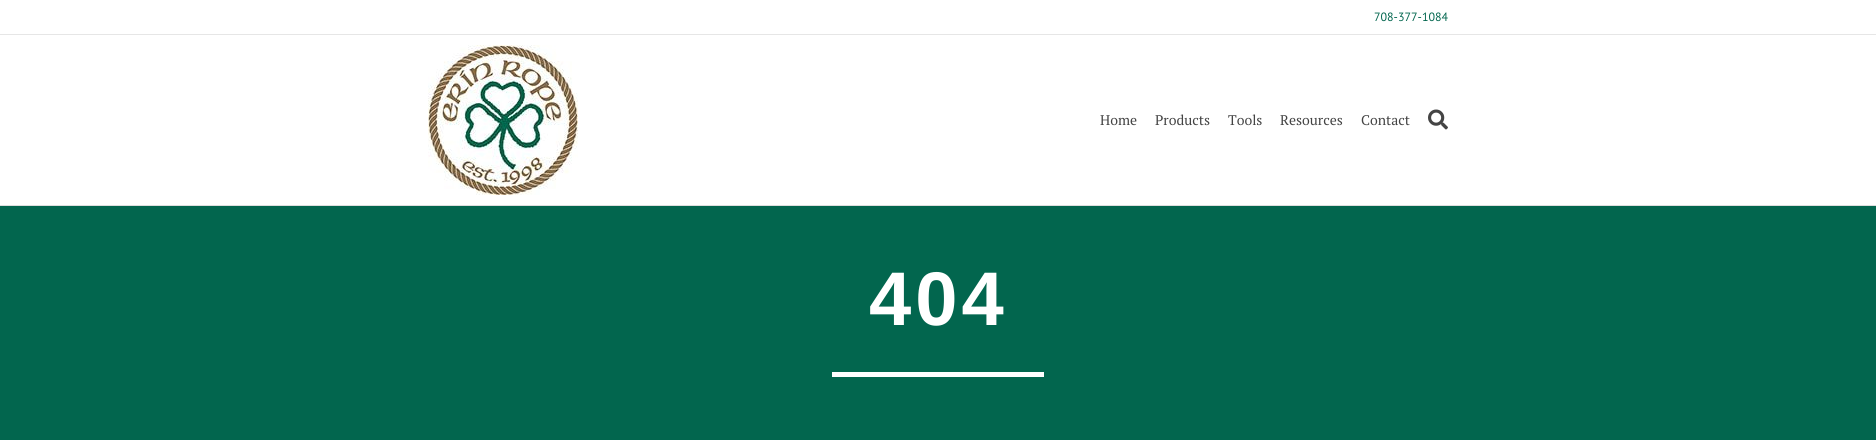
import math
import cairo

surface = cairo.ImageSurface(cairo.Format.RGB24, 1876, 440)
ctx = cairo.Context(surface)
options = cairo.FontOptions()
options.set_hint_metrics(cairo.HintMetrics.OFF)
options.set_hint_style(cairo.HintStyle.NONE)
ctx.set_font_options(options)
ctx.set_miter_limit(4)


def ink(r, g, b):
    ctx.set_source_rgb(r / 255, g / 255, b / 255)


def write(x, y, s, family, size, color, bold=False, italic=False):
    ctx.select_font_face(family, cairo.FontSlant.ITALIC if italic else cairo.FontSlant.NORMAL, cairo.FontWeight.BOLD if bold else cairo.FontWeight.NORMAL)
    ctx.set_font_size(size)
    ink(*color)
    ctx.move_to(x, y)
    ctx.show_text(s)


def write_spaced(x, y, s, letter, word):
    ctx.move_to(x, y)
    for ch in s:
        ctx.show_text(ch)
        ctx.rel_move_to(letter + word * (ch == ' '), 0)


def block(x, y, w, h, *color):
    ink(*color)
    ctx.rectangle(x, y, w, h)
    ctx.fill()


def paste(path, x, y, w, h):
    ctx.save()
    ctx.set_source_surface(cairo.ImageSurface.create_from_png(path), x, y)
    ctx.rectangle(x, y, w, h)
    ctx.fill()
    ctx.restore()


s1 = dict(family="PT Sans", size=12, color=(2, 102, 78))
s2 = dict(family="PT Serif", size=14, color=(68, 68, 68))

ink(255, 255, 255)
ctx.paint()
block(0, 34, 1876, 1, 230, 230, 230)
write(1374, 21, "708-377-1084", **s1)
block(0, 205, 1876, 1, 222, 222, 222)
paste("pic1.png", 428, 45, 150, 150)
write(1100, 125, "Home", **s2)
write(1155, 125, "Products", **s2)
write(1228, 125, "Tools", **s2)
write(1280, 125, "Resources", **s2)
write(1361, 125, "Contact", **s2)
paste("pic2.png", 1428, 109, 20, 21)
block(0, 206, 1876, 234, 2, 102, 78)
ctx.select_font_face("Liberation Sans", cairo.FontSlant.NORMAL, cairo.FontWeight.BOLD)
ctx.set_font_size(76)
ink(255, 255, 255)
write_spaced(869, 325, "404", 4, 0)
block(832, 372, 212, 5, 255, 255, 255)
surface.write_to_png("screenshot.png")
